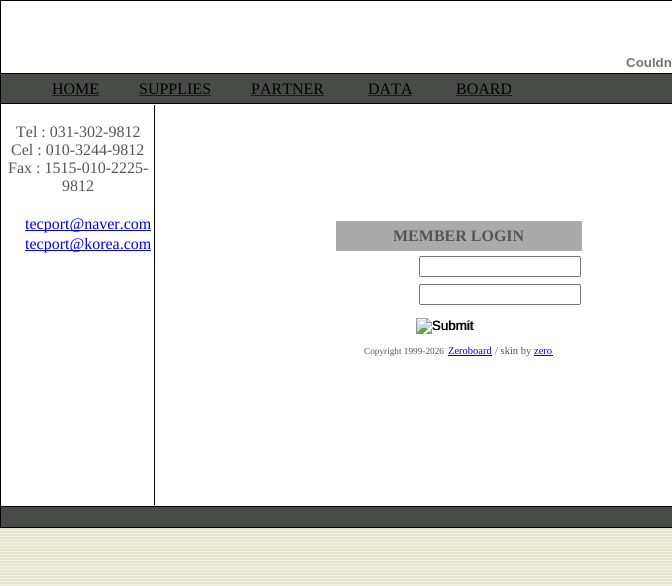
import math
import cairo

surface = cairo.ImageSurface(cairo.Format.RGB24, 672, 586)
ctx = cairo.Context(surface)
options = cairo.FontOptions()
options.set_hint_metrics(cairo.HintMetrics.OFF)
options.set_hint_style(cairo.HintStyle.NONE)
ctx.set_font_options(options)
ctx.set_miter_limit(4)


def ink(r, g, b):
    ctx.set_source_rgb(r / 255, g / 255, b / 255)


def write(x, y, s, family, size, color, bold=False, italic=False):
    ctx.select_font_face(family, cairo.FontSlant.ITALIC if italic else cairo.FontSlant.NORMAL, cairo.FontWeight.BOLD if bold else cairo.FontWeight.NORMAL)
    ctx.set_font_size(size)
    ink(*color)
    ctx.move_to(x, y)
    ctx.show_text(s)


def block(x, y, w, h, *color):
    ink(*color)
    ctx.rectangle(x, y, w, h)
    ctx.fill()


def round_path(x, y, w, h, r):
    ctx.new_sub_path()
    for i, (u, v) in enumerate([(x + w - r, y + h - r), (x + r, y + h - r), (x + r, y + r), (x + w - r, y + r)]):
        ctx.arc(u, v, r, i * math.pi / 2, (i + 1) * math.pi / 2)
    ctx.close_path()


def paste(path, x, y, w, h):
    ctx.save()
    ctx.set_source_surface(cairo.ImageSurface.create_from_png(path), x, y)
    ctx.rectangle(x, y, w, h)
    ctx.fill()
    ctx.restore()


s1 = dict(family="Liberation Serif", size=16, color=(0, 0, 0))
s2 = dict(family="Liberation Serif", size=16, color=(85, 85, 85))
s3 = dict(family="Liberation Serif", size=16, color=(0, 0, 255))
s4 = dict(family="Liberation Serif", size=16, color=(85, 85, 85), bold=True)
s5 = dict(family="Liberation Sans", size=13.5, color=(0, 0, 0))
s6 = dict(family="Liberation Serif", size=9.25, color=(85, 85, 85))
s7 = dict(family="Liberation Serif", size=10.5, color=(0, 0, 255))
s8 = dict(family="Liberation Serif", size=10.5, color=(85, 85, 85))

ink(255, 255, 255)
ctx.paint()
paste("pic1.png", 0, 528, 672, 58)
block(0, 0, 672, 528, 0, 0, 0)
block(1, 1, 671, 72, 255, 255, 255)
paste("pic2.png", 626, 58, 46, 9)
block(1, 74, 671, 29, 72, 76, 72)
write(52, 94, "HOME", **s1)
block(52, 95, 47, 1, 0, 0, 255)
write(139, 94, "SUPPLIES", **s1)
block(139, 95, 72, 1, 0, 0, 255)
write(251, 94, "PARTNER", **s1)
block(251, 95, 73, 1, 0, 0, 255)
write(368, 94, "DATA", **s1)
block(368, 95, 44, 1, 0, 0, 255)
write(456, 94, "BOARD", **s1)
block(456, 95, 56, 1, 0, 0, 255)
block(1, 104, 671, 402, 255, 255, 255)
write(16, 137, "Tel : 031-302-9812", **s2)
write(11, 155, "Cel : 010-3244-9812", **s2)
write(8, 173, "Fax : 1515-010-2225-", **s2)
write(62, 191, "9812", **s2)
block(25, 230, 126, 1, 0, 0, 255)
write(25, 229, "tecport@naver.com", **s3)
block(25, 250, 126, 1, 0, 0, 255)
write(25, 249, "tecport@korea.com", **s3)
block(154, 105, 1, 400, 0, 0, 0)
block(336, 221, 246, 30, 170, 170, 170)
write(393, 241, "MEMBER LOGIN", **s4)
round_path(419.5, 256.5, 161, 20, 1.5)
ink(118, 118, 118)
ctx.set_line_width(1)
ctx.stroke()
round_path(419.5, 284.5, 161, 20, 1.5)
ctx.stroke()
paste("pic3.png", 416, 318, 57, 16)
write(432, 330, "Submit", **s5)
write(364, 354, "Copyright 1999-2026", **s6)
write(448, 354, "Zeroboard", **s7)
block(448, 355, 44, 1, 0, 0, 255)
write(495, 354, "/ skin by", **s8)
write(534, 354, "zero", **s7)
block(534, 355, 19, 1, 0, 0, 255)
block(1, 507, 671, 20, 72, 76, 72)
surface.write_to_png("screenshot.png")
